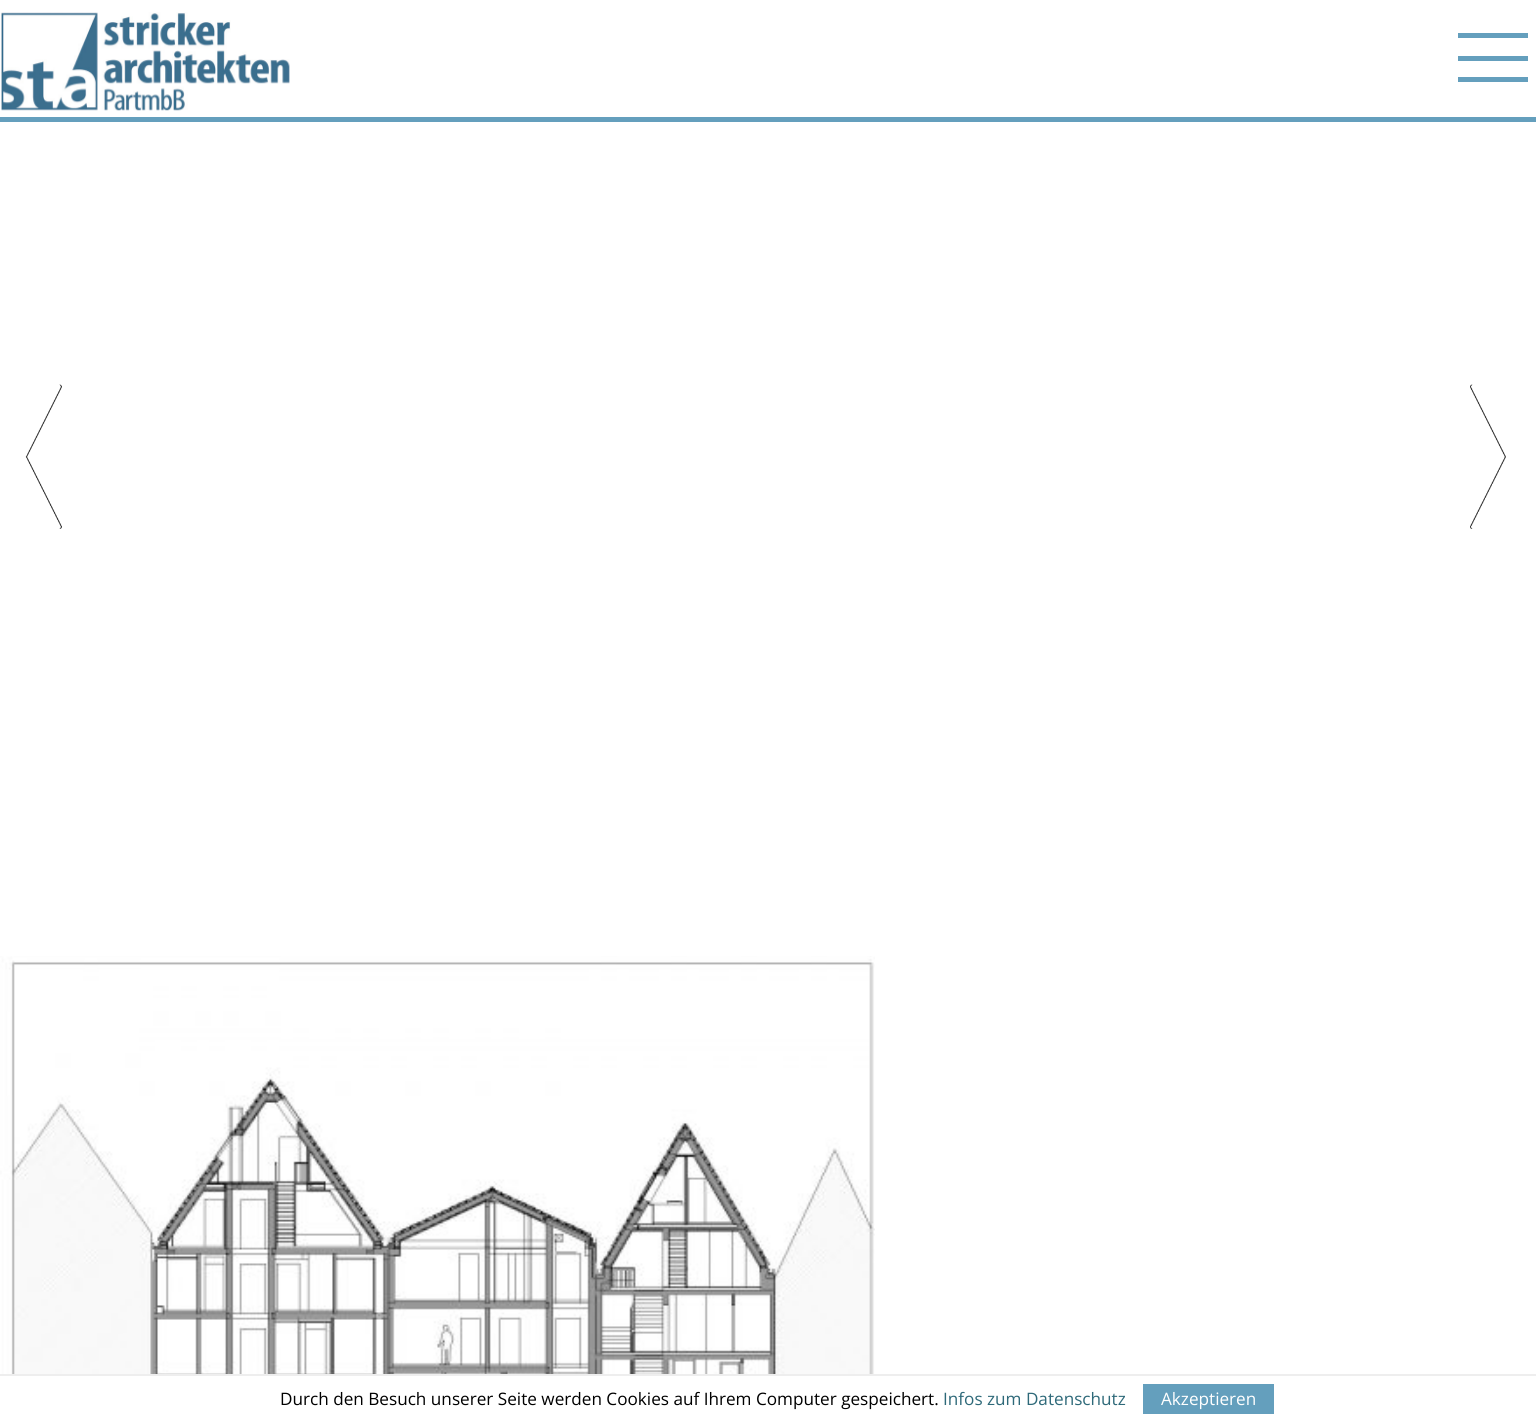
import math
import cairo

surface = cairo.ImageSurface(cairo.Format.RGB24, 1536, 1422)
ctx = cairo.Context(surface)
options = cairo.FontOptions()
options.set_hint_metrics(cairo.HintMetrics.OFF)
options.set_hint_style(cairo.HintStyle.NONE)
ctx.set_font_options(options)
ctx.set_miter_limit(4)


def ink(r, g, b):
    ctx.set_source_rgb(r / 255, g / 255, b / 255)


def write(x, y, s, family, size, color, bold=False, italic=False):
    ctx.select_font_face(family, cairo.FontSlant.ITALIC if italic else cairo.FontSlant.NORMAL, cairo.FontWeight.BOLD if bold else cairo.FontWeight.NORMAL)
    ctx.set_font_size(size)
    ink(*color)
    ctx.move_to(x, y)
    ctx.show_text(s)


def block(x, y, w, h, *color):
    ink(*color)
    ctx.rectangle(x, y, w, h)
    ctx.fill()


def paste(path, x, y, w, h):
    ctx.save()
    ctx.set_source_surface(cairo.ImageSurface.create_from_png(path), x, y)
    ctx.rectangle(x, y, w, h)
    ctx.fill()
    ctx.restore()


s1 = dict(family="Open Sans", size=17.15, color=(0, 0, 0))
s2 = dict(family="Open Sans", size=17.15, color=(46, 105, 121))
s3 = dict(family="Open Sans", size=17.15, color=(255, 255, 255))

ink(255, 255, 255)
ctx.paint()
paste("pic1.png", 1, 12, 289, 99)
block(1458, 33, 70, 5, 100, 159, 189)
block(1458, 77, 70, 5, 100, 159, 189)
block(1458, 56, 70, 5, 100, 159, 189)
block(0, 117, 1536, 5, 100, 159, 189)
paste("pic2.png", 25, 384, 37, 145)
paste("pic3.png", 1470, 384, 36, 145)
paste("pic4.png", 0, 956, 875, 418)
block(0, 1374, 1536, 2, 238, 238, 238)
write(280, 1405, "Durch den Besuch unserer Seite werden Cookies auf Ihrem Computer gespeichert.", **s1)
write(943, 1405, "Infos zum Datenschutz", **s2)
block(1143, 1384, 131, 30, 100, 159, 189)
write(1161, 1405, "Akzeptieren", **s3)
surface.write_to_png("screenshot.png")
